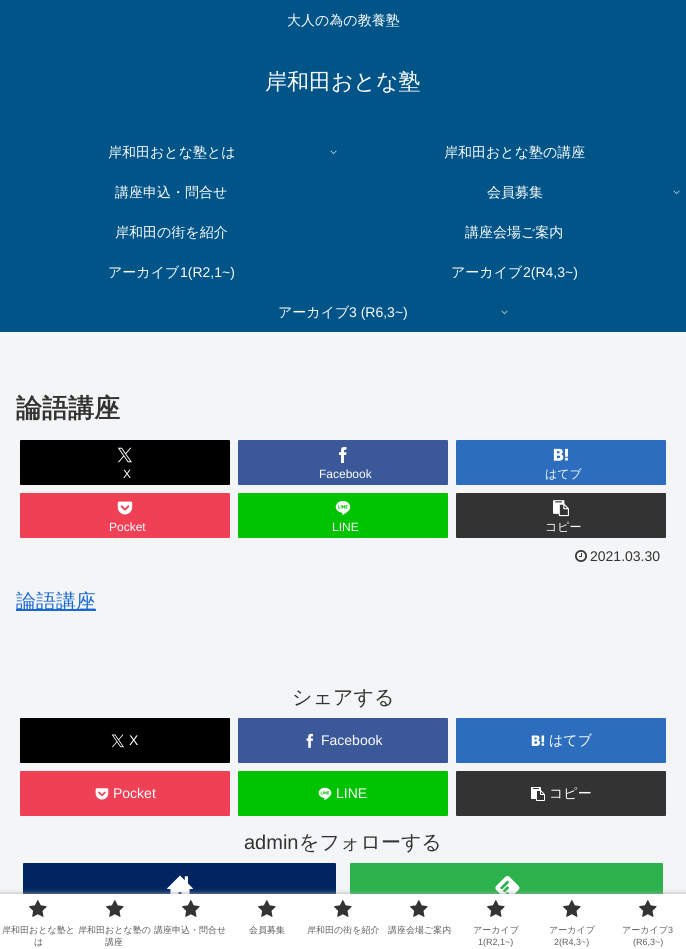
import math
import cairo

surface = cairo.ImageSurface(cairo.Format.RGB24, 686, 949)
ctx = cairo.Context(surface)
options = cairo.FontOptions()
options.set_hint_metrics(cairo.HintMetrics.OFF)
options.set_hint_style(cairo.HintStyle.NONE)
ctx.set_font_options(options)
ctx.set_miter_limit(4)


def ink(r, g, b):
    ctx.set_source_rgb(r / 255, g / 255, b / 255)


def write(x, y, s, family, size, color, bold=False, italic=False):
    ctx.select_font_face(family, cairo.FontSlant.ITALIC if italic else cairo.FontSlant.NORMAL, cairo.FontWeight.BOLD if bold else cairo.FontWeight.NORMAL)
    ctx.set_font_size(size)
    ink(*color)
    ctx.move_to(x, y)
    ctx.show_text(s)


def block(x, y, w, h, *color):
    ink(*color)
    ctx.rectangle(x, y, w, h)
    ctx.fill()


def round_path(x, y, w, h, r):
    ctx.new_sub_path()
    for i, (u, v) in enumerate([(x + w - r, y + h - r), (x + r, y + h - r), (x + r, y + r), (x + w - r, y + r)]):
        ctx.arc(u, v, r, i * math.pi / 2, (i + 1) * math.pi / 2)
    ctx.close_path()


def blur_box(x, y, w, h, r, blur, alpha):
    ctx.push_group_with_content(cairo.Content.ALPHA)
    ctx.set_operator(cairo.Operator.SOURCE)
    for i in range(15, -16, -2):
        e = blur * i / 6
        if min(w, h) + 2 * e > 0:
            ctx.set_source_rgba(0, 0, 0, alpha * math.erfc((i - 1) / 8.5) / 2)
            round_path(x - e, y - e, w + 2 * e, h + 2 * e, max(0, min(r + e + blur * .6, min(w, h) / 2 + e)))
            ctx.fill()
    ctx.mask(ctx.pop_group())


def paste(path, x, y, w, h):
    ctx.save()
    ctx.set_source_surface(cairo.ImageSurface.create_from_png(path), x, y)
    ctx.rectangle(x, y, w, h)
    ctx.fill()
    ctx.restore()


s1 = dict(family="WenQuanYi Zen Hei Medium", size=14, color=(255, 255, 255))
s2 = dict(family="WenQuanYi Zen Hei Medium", size=22, color=(255, 255, 255))
s3 = dict(family="Liberation Sans", size=14, color=(255, 255, 255))
s4 = dict(family="WenQuanYi Zen Hei", size=26, color=(51, 51, 51), bold=True)
s5 = dict(family="Liberation Sans", size=12, color=(255, 255, 255))
s6 = dict(family="WenQuanYi Zen Hei Medium", size=12, color=(255, 255, 255))
s7 = dict(family="Liberation Sans", size=14, color=(51, 51, 51))
s8 = dict(family="WenQuanYi Zen Hei Medium", size=20, color=(25, 103, 210))
s9 = dict(family="WenQuanYi Zen Hei Medium", size=20, color=(51, 51, 51))
s10 = dict(family="Liberation Sans", size=20, color=(51, 51, 51))
s11 = dict(family="WenQuanYi Zen Hei Medium", size=9, color=(92, 92, 92))
s12 = dict(family="Liberation Sans", size=9, color=(92, 92, 92))

ink(244, 245, 247)
ctx.paint()
block(0, 0, 686, 332, 0, 84, 136)
write(287, 25, "大人の為の教養塾", **s1)
write(265, 89, "岸和田おとな塾", **s2)
write(108, 157, "岸和田おとな塾とは", **s1)
paste("pic1.png", 330, 150, 7, 5)
write(444, 157, "岸和田おとな塾の講座", **s1)
write(115, 197, "講座申込・問合せ", **s1)
write(487, 197, "会員募集", **s1)
paste("pic1.png", 673, 190, 7, 5)
write(115, 237, "岸和田の街を紹介", **s1)
write(465, 237, "講座会場ご案内", **s1)
write(108, 277, "アーカイブ", **s1)
write(180, 277, "1(R2,1~)", **s3)
write(451, 277, "アーカイブ", **s1)
write(523, 277, "2(R4,3~)", **s3)
write(278, 317, "アーカイブ", **s1)
write(349, 317, "3 (R6,3~)", **s3)
paste("pic1.png", 501, 310, 7, 5)
write(16, 417, "論語講座", **s4)
ink(0, 0, 0)
round_path(20, 440, 210, 45, 1)
ctx.fill()
paste("pic2.png", 117, 447, 15, 16)
write(123, 478, "X", **s5)
ink(59, 89, 152)
round_path(238, 440, 210, 45, 1)
ctx.fill()
paste("pic3.png", 339, 447, 8, 16)
write(319, 478, "Facebook", **s5)
ink(44, 110, 189)
round_path(456, 440, 210, 45, 1)
ctx.fill()
paste("pic4.png", 553, 448, 16, 13)
write(545, 478, "はてブ", **s6)
ink(239, 64, 86)
round_path(20, 493, 210, 45, 1)
ctx.fill()
paste("pic5.png", 117, 501, 16, 14)
write(109, 531, "Pocket", **s5)
ink(0, 195, 0)
round_path(238, 493, 210, 45, 1)
ctx.fill()
paste("pic6.png", 335, 501, 16, 14)
write(332, 531, "LINE", **s5)
ink(51, 51, 51)
round_path(456, 493, 210, 45, 1)
ctx.fill()
paste("pic7.png", 553, 500, 16, 17)
write(545, 531, "コピー", **s6)
paste("pic8.png", 575, 550, 12, 12)
write(590, 561, "2021.03.30", **s7)
block(16, 609, 80, 2, 25, 103, 210)
write(16, 608, "論語講座", **s8)
write(292, 704, "シェアする", **s9)
ink(0, 0, 0)
round_path(20, 718, 210, 45, 1)
ctx.fill()
paste("pic9.png", 111, 734, 13, 14)
write(129, 745, "X", **s3)
ink(59, 89, 152)
round_path(238, 718, 210, 45, 1)
ctx.fill()
paste("pic10.png", 306, 733, 8, 15)
write(321, 745, "Facebook", **s3)
ink(44, 110, 189)
round_path(456, 718, 210, 45, 1)
ctx.fill()
paste("pic11.png", 531, 735, 14, 11)
write(549, 745, "はてブ", **s1)
ink(239, 64, 86)
round_path(20, 771, 210, 45, 1)
ctx.fill()
paste("pic12.png", 95, 788, 14, 12)
write(113, 798, "Pocket", **s3)
ink(0, 195, 0)
round_path(238, 771, 210, 45, 1)
ctx.fill()
paste("pic13.png", 318, 787, 14, 13)
write(336, 798, "LINE", **s3)
ink(51, 51, 51)
round_path(456, 771, 210, 45, 1)
ctx.fill()
paste("pic14.png", 531, 787, 14, 14)
write(549, 798, "コピー", **s1)
write(244, 849, "admin", **s10)
write(299, 849, "をフォローする", **s9)
ink(0, 37, 97)
round_path(23, 863, 313, 45, 1)
ctx.fill()
paste("pic15.png", 167, 875, 26, 19)
ink(43, 178, 76)
round_path(350, 863, 313, 45, 1)
ctx.fill()
paste("pic16.png", 495, 875, 25, 19)
ink(169, 169, 169)
blur_box(0, 894, 686, 55, 0, 2.5, 1)
block(0, 894, 686, 55, 255, 255, 255)
paste("pic17.png", 29, 900, 18, 17)
write(2, 933, "岸和田おとな塾と", **s11)
write(34, 945, "は", **s11)
paste("pic17.png", 106, 900, 18, 17)
write(78, 933, "岸和田おとな塾の", **s11)
write(105, 945, "講座", **s11)
paste("pic17.png", 182, 900, 18, 17)
write(154, 933, "講座申込・問合せ", **s11)
paste("pic17.png", 258, 900, 18, 17)
write(249, 933, "会員募集", **s11)
paste("pic17.png", 334, 900, 18, 17)
write(307, 933, "岸和田の街を紹介", **s11)
paste("pic17.png", 410, 900, 18, 17)
write(388, 933, "講座会場ご案内", **s11)
paste("pic17.png", 487, 900, 18, 17)
write(473, 933, "アーカイブ", **s11)
write(478, 945, "1(R2,1~)", **s12)
paste("pic17.png", 563, 900, 18, 17)
write(549, 933, "アーカイブ", **s11)
write(554, 945, "2(R4,3~)", **s12)
paste("pic17.png", 639, 900, 18, 17)
write(622, 933, "アーカイブ", **s11)
write(668, 933, "3", **s12)
write(633, 945, "(R6,3~)", **s12)
surface.write_to_png("screenshot.png")
